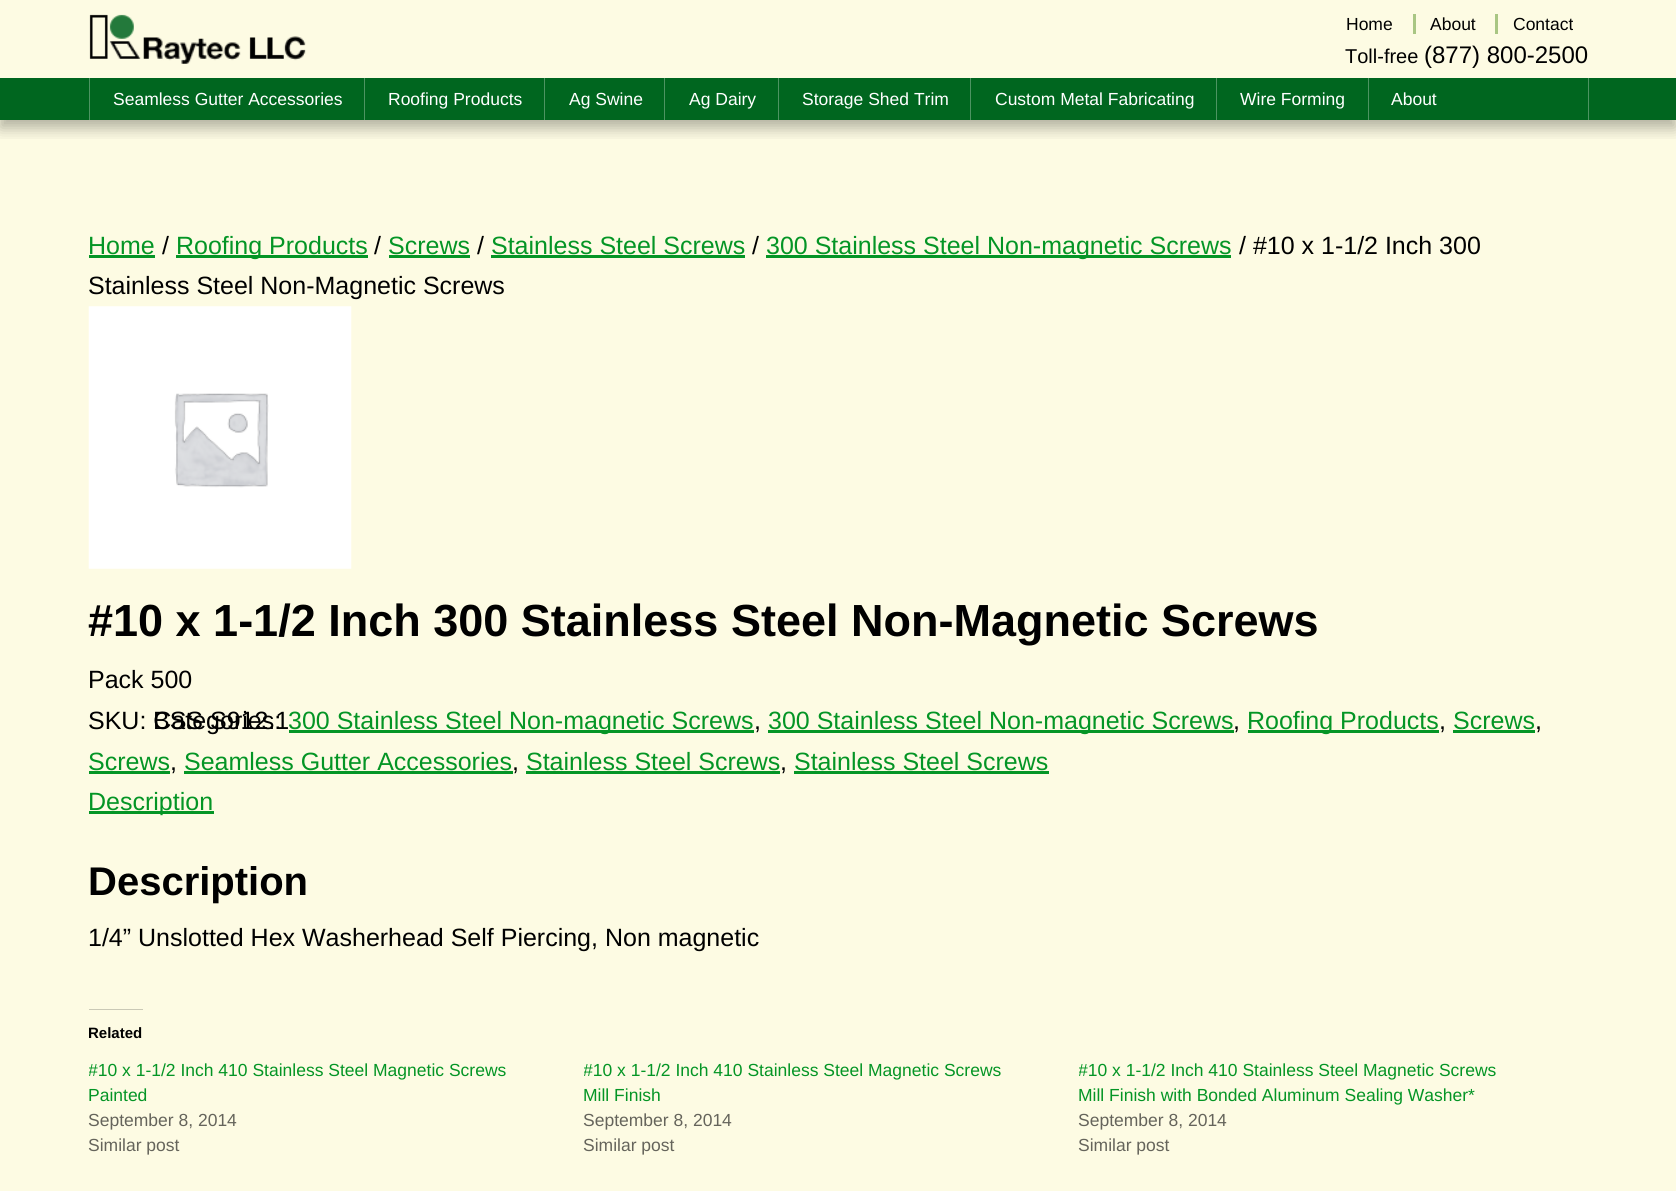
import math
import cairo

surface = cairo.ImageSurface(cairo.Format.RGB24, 1676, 1191)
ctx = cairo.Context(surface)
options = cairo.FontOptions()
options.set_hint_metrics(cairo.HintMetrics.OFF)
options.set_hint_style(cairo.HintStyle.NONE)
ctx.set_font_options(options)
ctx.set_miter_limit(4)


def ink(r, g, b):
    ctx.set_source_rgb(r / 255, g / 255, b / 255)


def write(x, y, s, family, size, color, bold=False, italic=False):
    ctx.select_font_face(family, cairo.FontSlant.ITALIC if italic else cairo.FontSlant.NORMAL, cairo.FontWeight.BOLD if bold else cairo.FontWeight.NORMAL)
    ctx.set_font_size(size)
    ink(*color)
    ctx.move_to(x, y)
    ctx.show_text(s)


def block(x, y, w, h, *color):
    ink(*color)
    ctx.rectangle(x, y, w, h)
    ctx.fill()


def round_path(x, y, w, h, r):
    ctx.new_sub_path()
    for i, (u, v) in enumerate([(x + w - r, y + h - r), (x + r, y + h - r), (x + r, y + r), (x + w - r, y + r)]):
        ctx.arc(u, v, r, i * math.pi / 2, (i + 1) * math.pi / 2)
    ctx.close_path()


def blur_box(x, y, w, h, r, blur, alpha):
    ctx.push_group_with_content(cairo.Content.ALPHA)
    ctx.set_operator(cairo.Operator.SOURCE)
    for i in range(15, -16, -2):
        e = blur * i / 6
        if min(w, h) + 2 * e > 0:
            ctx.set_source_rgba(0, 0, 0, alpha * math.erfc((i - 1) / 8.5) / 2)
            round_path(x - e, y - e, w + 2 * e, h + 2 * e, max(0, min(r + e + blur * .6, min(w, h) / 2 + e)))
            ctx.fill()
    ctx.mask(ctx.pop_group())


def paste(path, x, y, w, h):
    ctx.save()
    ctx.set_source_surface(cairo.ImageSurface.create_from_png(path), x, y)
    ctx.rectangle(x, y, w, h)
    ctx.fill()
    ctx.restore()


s1 = dict(family="Liberation Sans", size=17.5, color=(0, 0, 0))
s2 = dict(family="Liberation Sans", size=20, color=(0, 0, 0))
s3 = dict(family="Liberation Sans", size=24, color=(0, 0, 0))
s4 = dict(family="Liberation Sans", size=17.5, color=(255, 255, 255))
s5 = dict(family="Liberation Sans", size=25, color=(4, 149, 37))
s6 = dict(family="Liberation Sans", size=25, color=(0, 0, 0))
s7 = dict(family="Liberation Sans", size=45, color=(0, 0, 0), bold=True)
s8 = dict(family="Liberation Sans", size=40, color=(0, 0, 0), bold=True)
s9 = dict(family="Liberation Sans", size=15, color=(0, 0, 0), bold=True)
s10 = dict(family="Liberation Sans", size=17.5, color=(4, 149, 37))
s11 = dict(family="Liberation Sans", size=17.5, color=(101, 100, 91))

ink(253, 251, 227)
ctx.paint()
ctx.save()
ctx.rectangle(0, 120, 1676, 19)
ctx.clip()
ink(0, 0, 0)
blur_box(0, 8, 1676, 120, 0, 7.5, 0.3)
ctx.restore()
paste("pic1.png", 89, 14, 217, 50)
write(1346, 30, "Home", **s1)
block(1413, 14, 3, 20, 169, 198, 131)
write(1430, 30, "About", **s1)
block(1495, 14, 3, 20, 169, 198, 131)
write(1513, 30, "Contact", **s1)
write(1345, 63, "Toll-free", **s2)
write(1424, 63, "(877) 800-2500", **s3)
block(0, 78, 1676, 42, 0, 102, 31)
block(1588, 78, 1, 42, 77, 148, 98)
block(89, 78, 1, 42, 77, 148, 98)
write(113, 105, "Seamless Gutter Accessories", **s4)
block(364, 78, 1, 42, 77, 148, 98)
write(388, 105, "Roofing Products", **s4)
block(544, 78, 1, 42, 77, 148, 98)
write(569, 105, "Ag Swine", **s4)
block(664, 78, 1, 42, 77, 148, 98)
write(689, 105, "Ag Dairy", **s4)
block(778, 78, 1, 42, 77, 148, 98)
write(802, 105, "Storage Shed Trim", **s4)
block(970, 78, 1, 42, 77, 148, 98)
write(995, 105, "Custom Metal Fabricating", **s4)
block(1216, 78, 1, 42, 77, 148, 98)
write(1240, 105, "Wire Forming", **s4)
block(1368, 78, 1, 42, 77, 148, 98)
write(1391, 105, "About", **s4)
write(88, 254, "Home", **s5)
block(89, 255, 66, 3, 4, 149, 37)
write(162, 254, "/", **s6)
block(176, 255, 192, 3, 4, 149, 37)
write(176, 254, "Roofing Products", **s5)
write(374, 254, "/", **s6)
write(388, 254, "Screws", **s5)
block(389, 255, 81, 3, 4, 149, 37)
write(477, 254, "/", **s6)
write(491, 254, "Stainless Steel Screws", **s5)
block(491, 255, 254, 3, 4, 149, 37)
write(752, 254, "/", **s6)
block(766, 255, 465, 3, 4, 149, 37)
write(766, 254, "300 Stainless Steel Non-magnetic Screws", **s5)
write(1239, 254, "/ #10 x 1-1/2 Inch 300", **s6)
write(88, 294, "Stainless Steel Non-Magnetic Screws", **s6)
paste("pic2.png", 88, 306, 264, 263)
write(88, 636, "#10 x 1-1/2 Inch 300 Stainless Steel Non-Magnetic Screws", **s7)
write(88, 688, "Pack 500", **s6)
write(88, 729, "SKU: Categories:", **s6)
write(153, 729, "BSS S912.1", **s6)
block(289, 730, 465, 3, 4, 149, 37)
write(288, 729, "300 Stainless Steel Non-magnetic Screws", **s5)
write(754, 729, ",", **s6)
block(768, 730, 466, 3, 4, 149, 37)
write(768, 729, "300 Stainless Steel Non-magnetic Screws", **s5)
write(1233, 729, ",", **s6)
block(1248, 730, 191, 3, 4, 149, 37)
write(1247, 729, "Roofing Products", **s5)
write(1439, 729, ",", **s6)
write(1453, 729, "Screws", **s5)
write(1535, 729, ",", **s6)
block(1453, 730, 82, 3, 4, 149, 37)
write(88, 770, "Screws", **s5)
write(170, 770, ",", **s6)
block(89, 771, 81, 3, 4, 149, 37)
write(184, 770, "Seamless Gutter Accessories", **s5)
write(512, 770, ",", **s6)
block(184, 771, 329, 3, 4, 149, 37)
write(526, 770, "Stainless Steel Screws", **s5)
write(780, 770, ",", **s6)
block(526, 771, 254, 3, 4, 149, 37)
block(794, 771, 255, 3, 4, 149, 37)
write(794, 770, "Stainless Steel Screws", **s5)
block(89, 811, 125, 3, 4, 149, 37)
write(88, 810, "Description", **s5)
write(88, 895, "Description", **s8)
write(88, 946, "1/4” Unslotted Hex Washerhead Self Piercing, Non magnetic", **s6)
block(89, 1009, 54, 1, 202, 201, 182)
write(88, 1038, "Related", **s9)
ctx.save()
ctx.rectangle(89, 1058, 445, 50)
ctx.clip()
write(88, 1076, "#10 x 1-1/2 Inch 410 Stainless Steel Magnetic Screws", **s10)
ctx.restore()
write(88, 1101, "Painted", **s10)
write(88, 1126, "September 8, 2014", **s11)
write(88, 1151, "Similar post", **s11)
ctx.save()
ctx.rectangle(584, 1058, 445, 50)
ctx.clip()
write(583, 1076, "#10 x 1-1/2 Inch 410 Stainless Steel Magnetic Screws", **s10)
ctx.restore()
write(583, 1101, "Mill Finish", **s10)
write(583, 1126, "September 8, 2014", **s11)
write(583, 1151, "Similar post", **s11)
ctx.save()
ctx.rectangle(1079, 1058, 445, 50)
ctx.clip()
write(1078, 1076, "#10 x 1-1/2 Inch 410 Stainless Steel Magnetic Screws", **s10)
ctx.restore()
write(1078, 1101, "Mill Finish with Bonded Aluminum Sealing Washer*", **s10)
write(1078, 1126, "September 8, 2014", **s11)
write(1078, 1151, "Similar post", **s11)
surface.write_to_png("screenshot.png")
